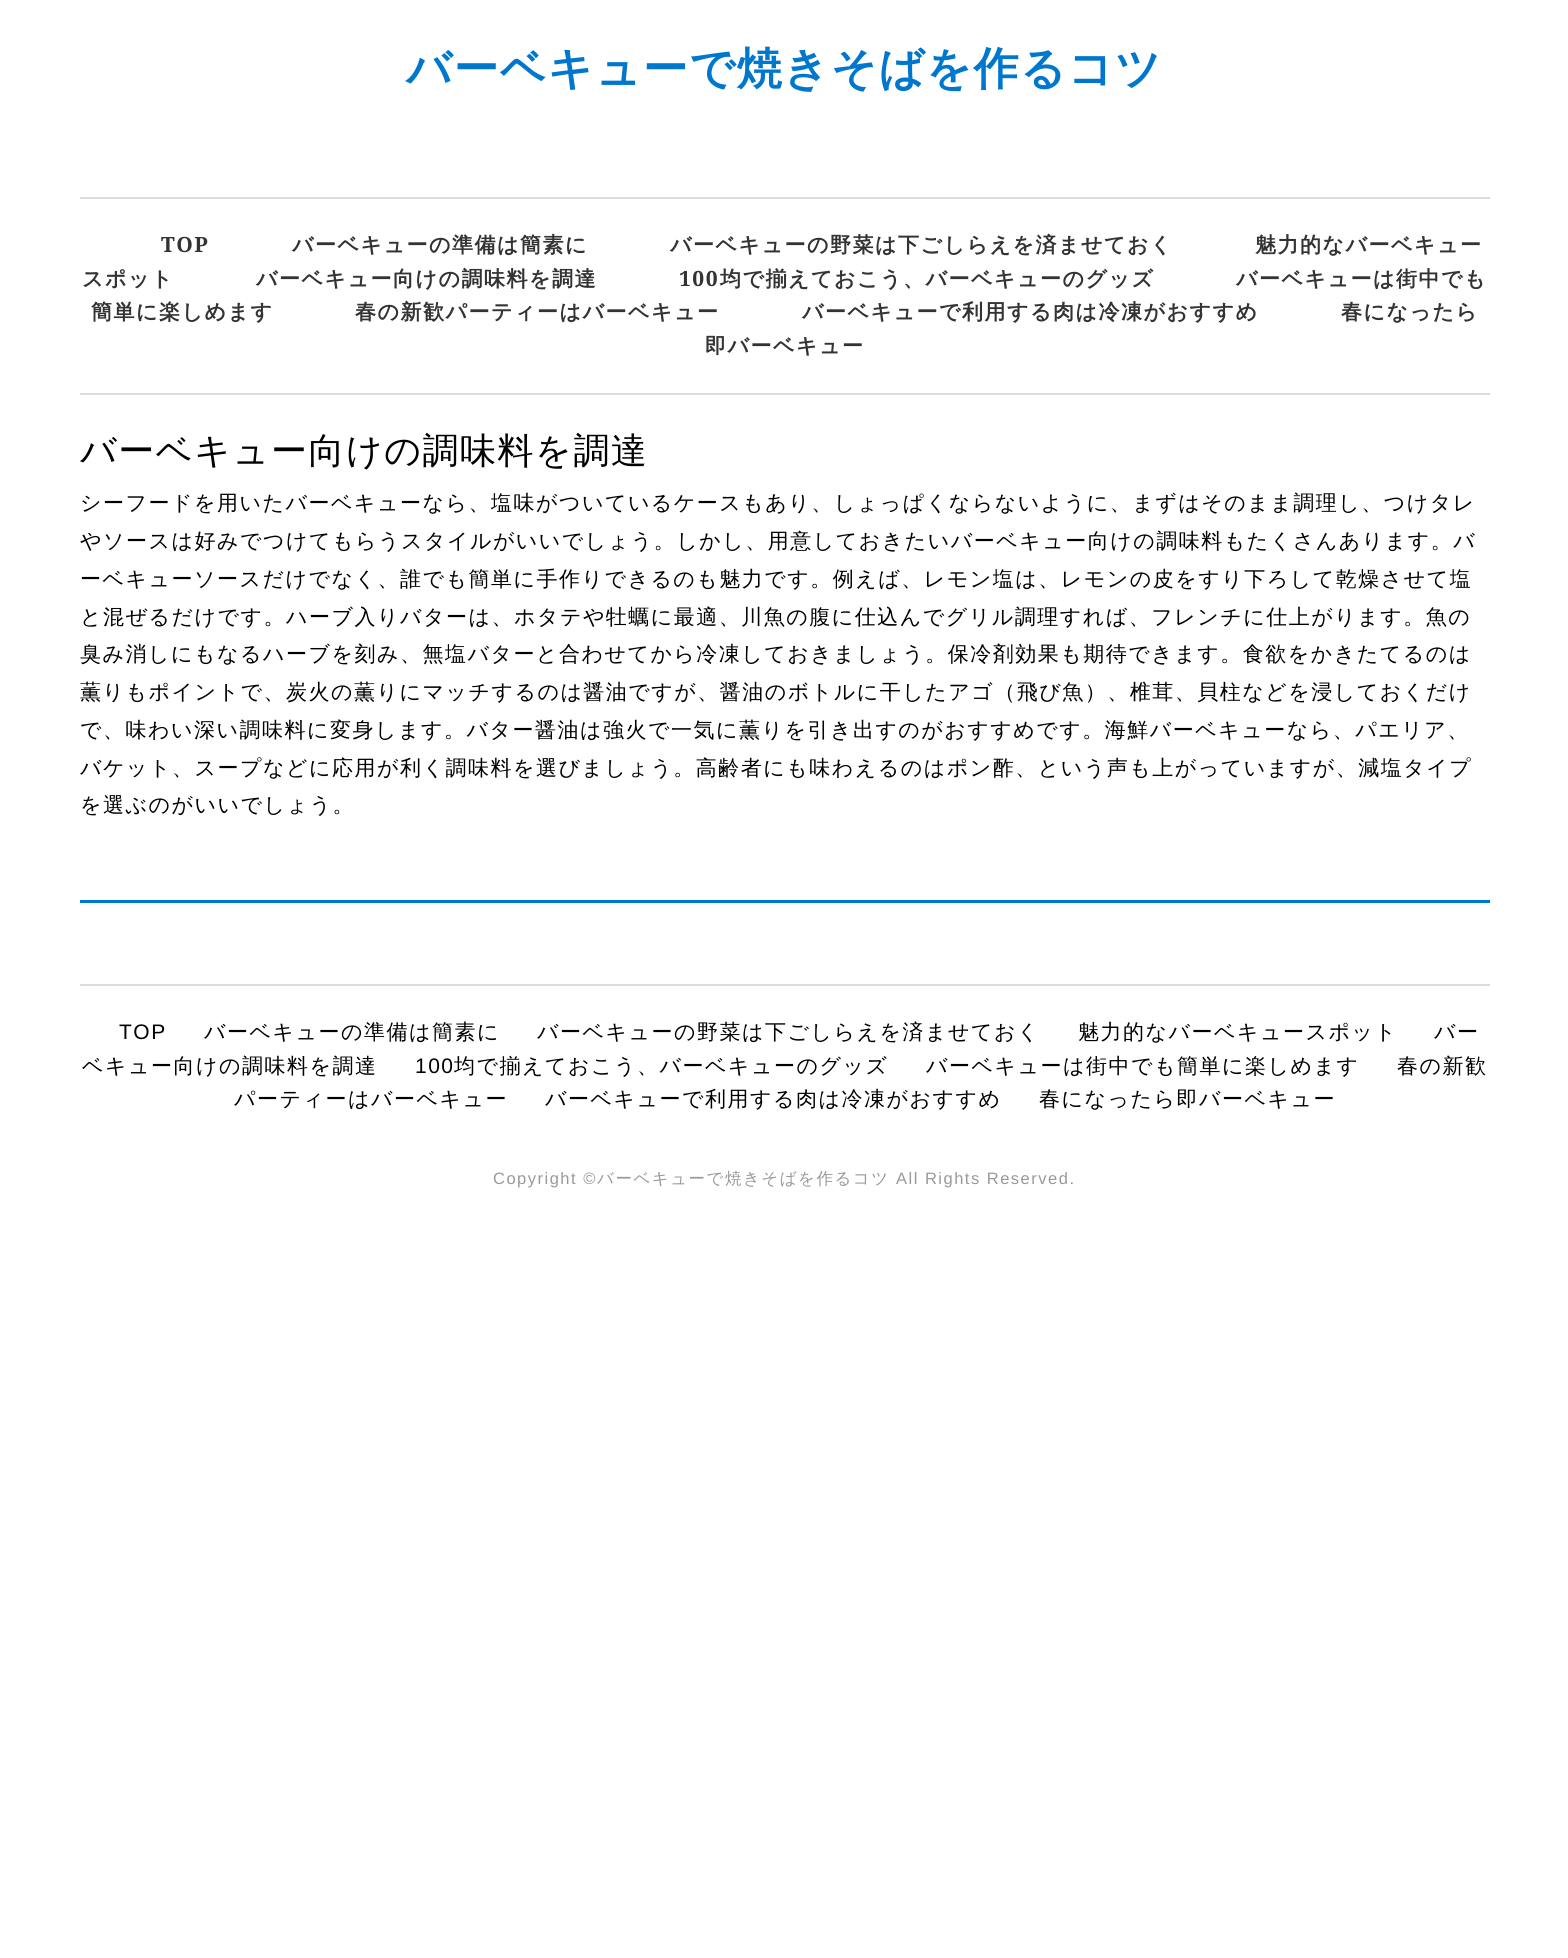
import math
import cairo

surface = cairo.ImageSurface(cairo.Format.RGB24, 1568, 1958)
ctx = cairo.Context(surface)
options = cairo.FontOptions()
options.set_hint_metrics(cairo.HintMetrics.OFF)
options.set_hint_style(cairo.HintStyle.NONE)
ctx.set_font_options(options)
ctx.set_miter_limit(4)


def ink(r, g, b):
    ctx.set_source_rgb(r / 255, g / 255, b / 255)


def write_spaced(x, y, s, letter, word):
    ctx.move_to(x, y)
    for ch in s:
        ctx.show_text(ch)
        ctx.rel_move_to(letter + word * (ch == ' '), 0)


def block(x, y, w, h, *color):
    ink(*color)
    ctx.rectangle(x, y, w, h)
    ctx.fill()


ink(255, 255, 255)
ctx.paint()
ctx.select_font_face("WenQuanYi Zen Hei", cairo.FontSlant.NORMAL, cairo.FontWeight.BOLD)
ctx.set_font_size(45)
ink(0, 119, 206)
write_spaced(406, 84, "バーベキューで焼きそばを作るコツ", 1.5, 0)
block(80, 197, 1410, 2, 221, 221, 221)
block(80, 393, 1410, 2, 221, 221, 221)
ctx.select_font_face("Noto Serif", cairo.FontSlant.NORMAL, cairo.FontWeight.BOLD)
ctx.set_font_size(21)
ink(51, 51, 51)
write_spaced(161, 252, "TOP", 1.5, 0)
ctx.select_font_face("WenQuanYi Zen Hei", cairo.FontSlant.NORMAL, cairo.FontWeight.BOLD)
write_spaced(292, 252, "バーベキューの準備は簡素に", 1.5, 0)
write_spaced(670, 252, "バーベキューの野菜は下ごしらえを済ませておく", 1.5, 0)
write_spaced(1255, 252, "魅力的なバーベキュー", 1.5, 0)
write_spaced(82, 286, "スポット", 1.5, 0)
write_spaced(256, 286, "バーベキュー向けの調味料を調達", 1.5, 0)
ctx.select_font_face("Noto Serif", cairo.FontSlant.NORMAL, cairo.FontWeight.BOLD)
write_spaced(679, 286, "100", 1.5, 0)
ctx.select_font_face("WenQuanYi Zen Hei", cairo.FontSlant.NORMAL, cairo.FontWeight.BOLD)
write_spaced(720, 286, "均で揃えておこう、バーベキューのグッズ", 1.5, 0)
write_spaced(1236, 286, "バーベキューは街中でも", 1.5, 0)
write_spaced(91, 319, "簡単に楽しめます", 1.5, 0)
write_spaced(355, 319, "春の新歓パーティーはバーベキュー", 1.5, 0)
write_spaced(802, 319, "バーベキューで利用する肉は冷凍がおすすめ", 1.5, 0)
write_spaced(1341, 319, "春になったら", 1.5, 0)
write_spaced(705, 353, "即バーベキュー", 1.5, 0)
ctx.select_font_face("WenQuanYi Zen Hei Medium")
ctx.set_font_size(36)
ink(0, 0, 0)
write_spaced(80, 463, "バーベキュー向けの調味料を調達", 1.5, 0)
ctx.set_font_size(21)
write_spaced(80, 510, "シーフードを用いたバーベキューなら、塩味がついているケースもあり、しょっぱくならないように、まずはそのまま調理し、つけタレ", 1.5, 0)
write_spaced(80, 548, "やソースは好みでつけてもらうスタイルがいいでしょう。しかし、用意しておきたいバーベキュー向けの調味料もたくさんあります。バ", 1.5, 0)
write_spaced(80, 586, "ーベキューソースだけでなく、誰でも簡単に手作りできるのも魅力です。例えば、レモン塩は、レモンの皮をすり下ろして乾燥させて塩", 1.5, 0)
write_spaced(80, 624, "と混ぜるだけです。ハーブ入りバターは、ホタテや牡蠣に最適、川魚の腹に仕込んでグリル調理すれば、フレンチに仕上がります。魚の", 1.5, 0)
write_spaced(80, 661, "臭み消しにもなるハーブを刻み、無塩バターと合わせてから冷凍しておきましょう。保冷剤効果も期待できます。食欲をかきたてるのは", 1.5, 0)
write_spaced(80, 699, "薫りもポイントで、炭火の薫りにマッチするのは醤油ですが、醤油のボトルに干したアゴ（飛び魚）、椎茸、貝柱などを浸しておくだけ", 1.5, 0)
write_spaced(80, 737, "で、味わい深い調味料に変身します。バター醤油は強火で一気に薫りを引き出すのがおすすめです。海鮮バーベキューなら、パエリア、", 1.5, 0)
write_spaced(80, 775, "バケット、スープなどに応用が利く調味料を選びましょう。高齢者にも味わえるのはポン酢、という声も上がっていますが、減塩タイプ", 1.5, 0)
write_spaced(80, 812, "を選ぶのがいいでしょう。", 1.5, 0)
block(80, 900, 1410, 3, 0, 119, 206)
block(80, 984, 1410, 2, 221, 221, 221)
ctx.select_font_face("Liberation Sans")
ink(0, 0, 0)
write_spaced(119, 1039, "TOP", 1.5, 0)
ctx.select_font_face("WenQuanYi Zen Hei Medium")
write_spaced(204, 1039, "バーベキューの準備は簡素に", 1.5, 0)
write_spaced(537, 1039, "バーベキューの野菜は下ごしらえを済ませておく", 1.5, 0)
write_spaced(1078, 1039, "魅力的なバーベキュースポット", 1.5, 0)
write_spaced(1434, 1039, "バー", 1.5, 0)
write_spaced(82, 1073, "ベキュー向けの調味料を調達", 1.5, 0)
ctx.select_font_face("Liberation Sans")
write_spaced(415, 1073, "100", 1.5, 0)
ctx.select_font_face("WenQuanYi Zen Hei Medium")
write_spaced(454, 1073, "均で揃えておこう、バーベキューのグッズ", 1.5, 0)
write_spaced(926, 1073, "バーベキューは街中でも簡単に楽しめます", 1.5, 0)
write_spaced(1397, 1073, "春の新歓", 1.5, 0)
write_spaced(234, 1106, "パーティーはバーベキュー", 1.5, 0)
write_spaced(545, 1106, "バーベキューで利用する肉は冷凍がおすすめ", 1.5, 0)
write_spaced(1039, 1106, "春になったら即バーベキュー", 1.5, 0)
ctx.select_font_face("Liberation Sans")
ctx.set_font_size(16.5)
ink(153, 153, 153)
write_spaced(493, 1184, "Copyright ©", 1.5, 0)
ctx.select_font_face("WenQuanYi Zen Hei Medium")
write_spaced(597, 1184, "バーベキューで焼きそばを作るコツ", 1.5, 0)
ctx.select_font_face("Liberation Sans")
write_spaced(896, 1184, "All Rights Reserved.", 1.5, 0)
surface.write_to_png("screenshot.png")
